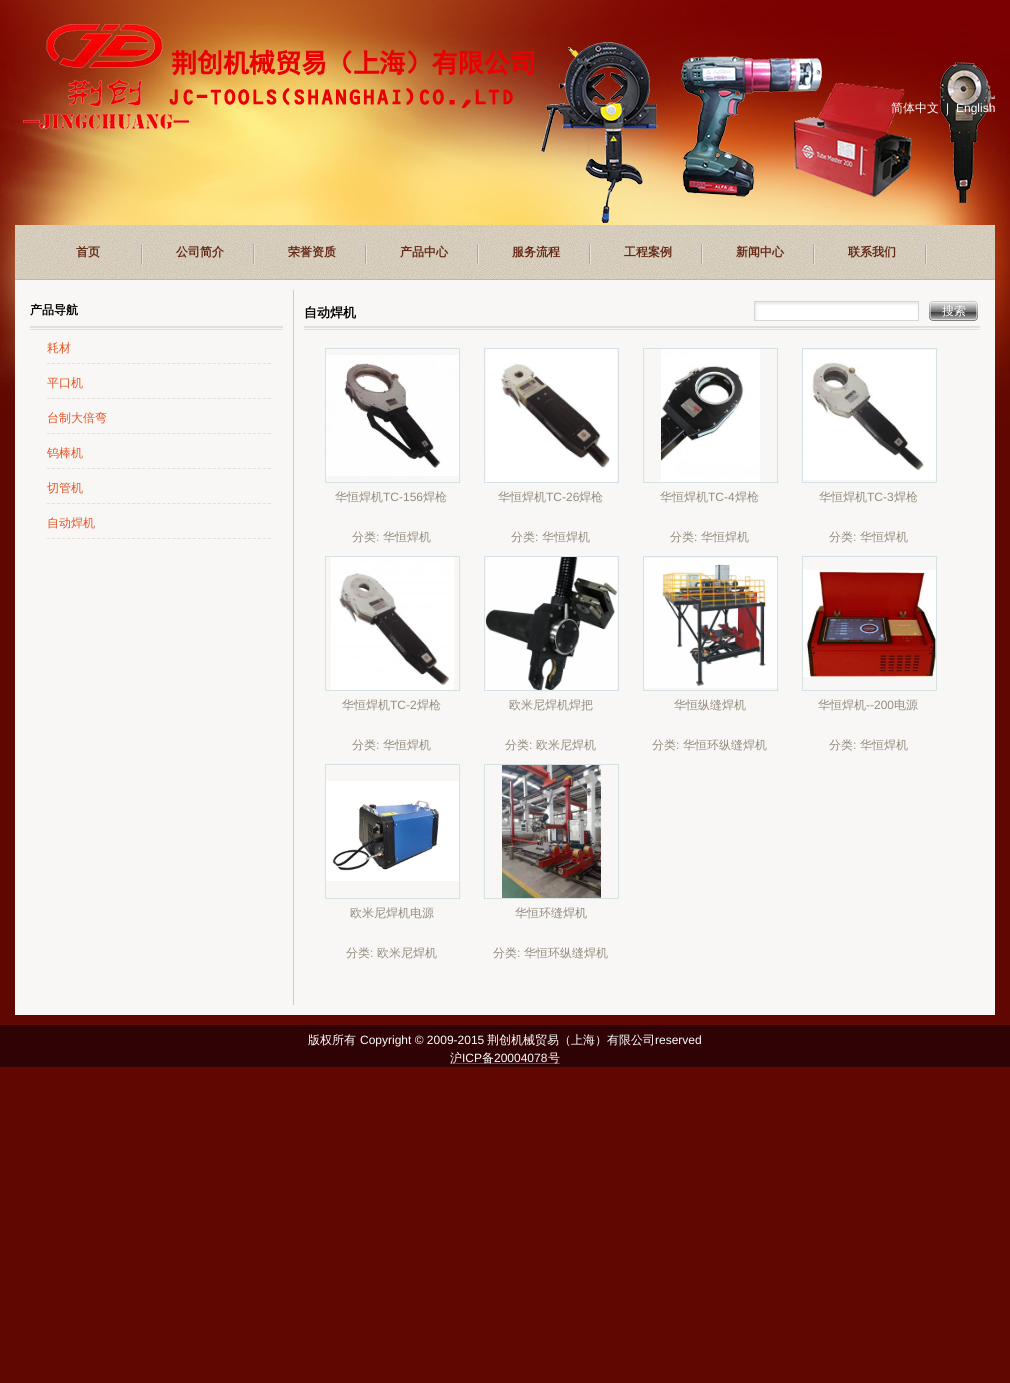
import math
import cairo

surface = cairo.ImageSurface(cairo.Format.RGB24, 1010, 1383)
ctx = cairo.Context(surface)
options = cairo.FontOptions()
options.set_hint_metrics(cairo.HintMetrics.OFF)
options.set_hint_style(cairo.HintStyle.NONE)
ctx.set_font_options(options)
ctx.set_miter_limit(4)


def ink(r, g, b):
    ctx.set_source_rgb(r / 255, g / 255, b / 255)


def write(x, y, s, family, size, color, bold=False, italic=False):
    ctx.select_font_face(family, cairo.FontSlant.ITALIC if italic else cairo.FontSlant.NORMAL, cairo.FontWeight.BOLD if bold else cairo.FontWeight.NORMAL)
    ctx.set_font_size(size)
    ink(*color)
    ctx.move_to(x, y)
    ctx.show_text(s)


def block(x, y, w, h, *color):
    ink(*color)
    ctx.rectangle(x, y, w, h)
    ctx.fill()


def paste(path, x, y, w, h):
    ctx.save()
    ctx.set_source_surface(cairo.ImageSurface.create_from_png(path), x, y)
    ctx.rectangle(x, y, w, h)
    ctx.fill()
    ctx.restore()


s1 = dict(family="WenQuanYi Zen Hei Medium", size=12, color=(255, 255, 255))
s2 = dict(family="Liberation Sans", size=12, color=(255, 255, 255))
s3 = dict(family="WenQuanYi Zen Hei", size=12, color=(99, 39, 19), bold=True)
s4 = dict(family="WenQuanYi Zen Hei", size=12, color=(0, 0, 0), bold=True)
s5 = dict(family="WenQuanYi Zen Hei Medium", size=12, color=(227, 84, 35))
s6 = dict(family="WenQuanYi Zen Hei", size=13, color=(0, 0, 0), bold=True)
s7 = dict(family="WenQuanYi Zen Hei Medium", size=12, color=(147, 139, 126))
s8 = dict(family="Liberation Sans", size=12, color=(147, 139, 126))

ink(95, 7, 0)
ctx.paint()
paste("pic1.png", 0, 0, 1010, 603)
paste("pic2.png", 540, 42, 455, 181)
paste("pic3.png", 23, 24, 512, 106)
write(891, 112, "简体中文", **s1)
write(946, 112, "|", **s2)
write(956, 112, "English", **s2)
paste("pic4.png", 15, 225, 980, 55)
paste("pic5.png", 141, 226, 2, 54)
write(76, 256, "首页", **s3)
paste("pic6.png", 253, 226, 2, 53)
write(176, 256, "公司简介", **s3)
paste("pic6.png", 365, 226, 2, 53)
write(288, 256, "荣誉资质", **s3)
paste("pic6.png", 477, 226, 2, 53)
write(400, 256, "产品中心", **s3)
paste("pic7.png", 589, 225, 2, 52)
write(512, 256, "服务流程", **s3)
paste("pic8.png", 701, 225, 2, 55)
write(624, 256, "工程案例", **s3)
paste("pic9.png", 813, 225, 2, 54)
write(736, 256, "新闻中心", **s3)
paste("pic10.png", 925, 227, 2, 53)
write(848, 256, "联系我们", **s3)
block(15, 280, 980, 735, 249, 247, 245)
paste("pic11.png", 30, 326, 253, 4)
write(30, 314, "产品导航", **s4)
ctx.new_path()
ctx.move_to(47, 363.5)
ctx.line_to(271, 363.5)
ink(227, 223, 216)
ctx.set_line_width(1)
ctx.set_dash([3, 2.02])
ctx.stroke()
write(47, 352, "耗材", **s5)
ctx.new_path()
ctx.move_to(47, 398.5)
ctx.line_to(271, 398.5)
ink(227, 223, 216)
ctx.stroke()
write(47, 387, "平口机", **s5)
ctx.new_path()
ctx.move_to(47, 433.5)
ctx.line_to(271, 433.5)
ink(227, 223, 216)
ctx.stroke()
write(47, 422, "台制大倍弯", **s5)
ctx.new_path()
ctx.move_to(47, 468.5)
ctx.line_to(271, 468.5)
ink(227, 223, 216)
ctx.stroke()
write(47, 457, "钨棒机", **s5)
ctx.new_path()
ctx.move_to(47, 503.5)
ctx.line_to(271, 503.5)
ink(227, 223, 216)
ctx.stroke()
write(47, 492, "切管机", **s5)
ctx.new_path()
ctx.move_to(47, 538.5)
ctx.line_to(271, 538.5)
ink(227, 223, 216)
ctx.stroke()
write(47, 527, "自动焊机", **s5)
block(293, 290, 1, 715, 211, 203, 190)
paste("pic12.png", 304, 326, 676, 4)
write(304, 317, "自动焊机", **s6)
paste("pic13.png", 755, 302, 163, 18)
ctx.rectangle(754.5, 301.5, 164, 19)
ink(214, 214, 214)
ctx.set_dash([])
ctx.stroke()
paste("pic14.png", 929, 301, 49, 20)
write(942, 315, "搜索", **s1)
ctx.rectangle(325.5, 348.5, 134, 134)
ink(213, 225, 226)
ctx.stroke()
paste("pic15.png", 326, 355, 133, 121)
write(335, 501, "华恒焊机", **s7)
write(383, 501, "TC-156", **s8)
write(423, 501, "焊枪", **s7)
write(352, 541, "分类", **s7)
write(376, 541, ":", **s8)
write(383, 541, "华恒焊机", **s7)
ctx.rectangle(484.5, 348.5, 134, 134)
ink(213, 225, 226)
ctx.stroke()
paste("pic16.png", 486, 349, 131, 133)
write(498, 501, "华恒焊机", **s7)
write(546, 501, "TC-26", **s8)
write(579, 501, "焊枪", **s7)
write(511, 541, "分类", **s7)
write(535, 541, ":", **s8)
write(542, 541, "华恒焊机", **s7)
ctx.rectangle(643.5, 348.5, 134, 134)
ink(213, 225, 226)
ctx.stroke()
paste("pic17.png", 661, 349, 99, 133)
write(660, 501, "华恒焊机", **s7)
write(708, 501, "TC-4", **s8)
write(735, 501, "焊枪", **s7)
write(670, 541, "分类", **s7)
write(694, 541, ":", **s8)
write(701, 541, "华恒焊机", **s7)
ctx.rectangle(802.5, 348.5, 134, 134)
ink(213, 225, 226)
ctx.stroke()
paste("pic18.png", 803, 350, 133, 130)
write(819, 501, "华恒焊机", **s7)
write(867, 501, "TC-3", **s8)
write(894, 501, "焊枪", **s7)
write(829, 541, "分类", **s7)
write(853, 541, ":", **s8)
write(860, 541, "华恒焊机", **s7)
ctx.rectangle(325.5, 556.5, 134, 134)
ink(213, 225, 226)
ctx.stroke()
paste("pic19.png", 331, 557, 123, 133)
write(342, 709, "华恒焊机", **s7)
write(390, 709, "TC-2", **s8)
write(417, 709, "焊枪", **s7)
write(352, 749, "分类", **s7)
write(376, 749, ":", **s8)
write(383, 749, "华恒焊机", **s7)
ctx.rectangle(484.5, 556.5, 134, 134)
ink(213, 225, 226)
ctx.stroke()
paste("pic20.png", 486, 557, 131, 133)
write(509, 709, "欧米尼焊机焊把", **s7)
write(505, 749, "分类", **s7)
write(529, 749, ":", **s8)
write(536, 749, "欧米尼焊机", **s7)
ctx.rectangle(643.5, 556.5, 134, 134)
ink(213, 225, 226)
ctx.stroke()
paste("pic21.png", 644, 558, 133, 130)
write(674, 709, "华恒纵缝焊机", **s7)
write(652, 749, "分类", **s7)
write(676, 749, ":", **s8)
write(683, 749, "华恒环纵缝焊机", **s7)
ctx.rectangle(802.5, 556.5, 134, 134)
ink(213, 225, 226)
ctx.stroke()
paste("pic22.png", 803, 570, 133, 107)
write(818, 709, "华恒焊机", **s7)
write(866, 709, "--200", **s8)
write(894, 709, "电源", **s7)
write(829, 749, "分类", **s7)
write(853, 749, ":", **s8)
write(860, 749, "华恒焊机", **s7)
ctx.rectangle(325.5, 764.5, 134, 134)
ink(213, 225, 226)
ctx.stroke()
paste("pic23.png", 326, 781, 133, 100)
write(350, 917, "欧米尼焊机电源", **s7)
write(346, 957, "分类", **s7)
write(370, 957, ":", **s8)
write(377, 957, "欧米尼焊机", **s7)
ctx.rectangle(484.5, 764.5, 134, 134)
ink(213, 225, 226)
ctx.stroke()
paste("pic24.png", 502, 765, 99, 133)
write(515, 917, "华恒环缝焊机", **s7)
write(493, 957, "分类", **s7)
write(517, 957, ":", **s8)
write(524, 957, "华恒环纵缝焊机", **s7)
block(0, 1026, 1010, 41, 47, 3, 5)
block(0, 1025, 1010, 1, 36, 2, 3)
write(308, 1044, "版权所有", **s1)
write(360, 1044, "Copyright © 2009-2015", **s2)
write(487, 1044, "荆创机械贸易（上海）有限公司", **s1)
write(655, 1044, "reserved", **s2)
block(450, 1063, 110, 1, 123, 64, 53)
write(450, 1062, "沪", **s1)
write(462, 1062, "ICP", **s2)
write(482, 1062, "备", **s1)
write(494, 1062, "20004078", **s2)
write(548, 1062, "号", **s1)
surface.write_to_png("screenshot.png")
